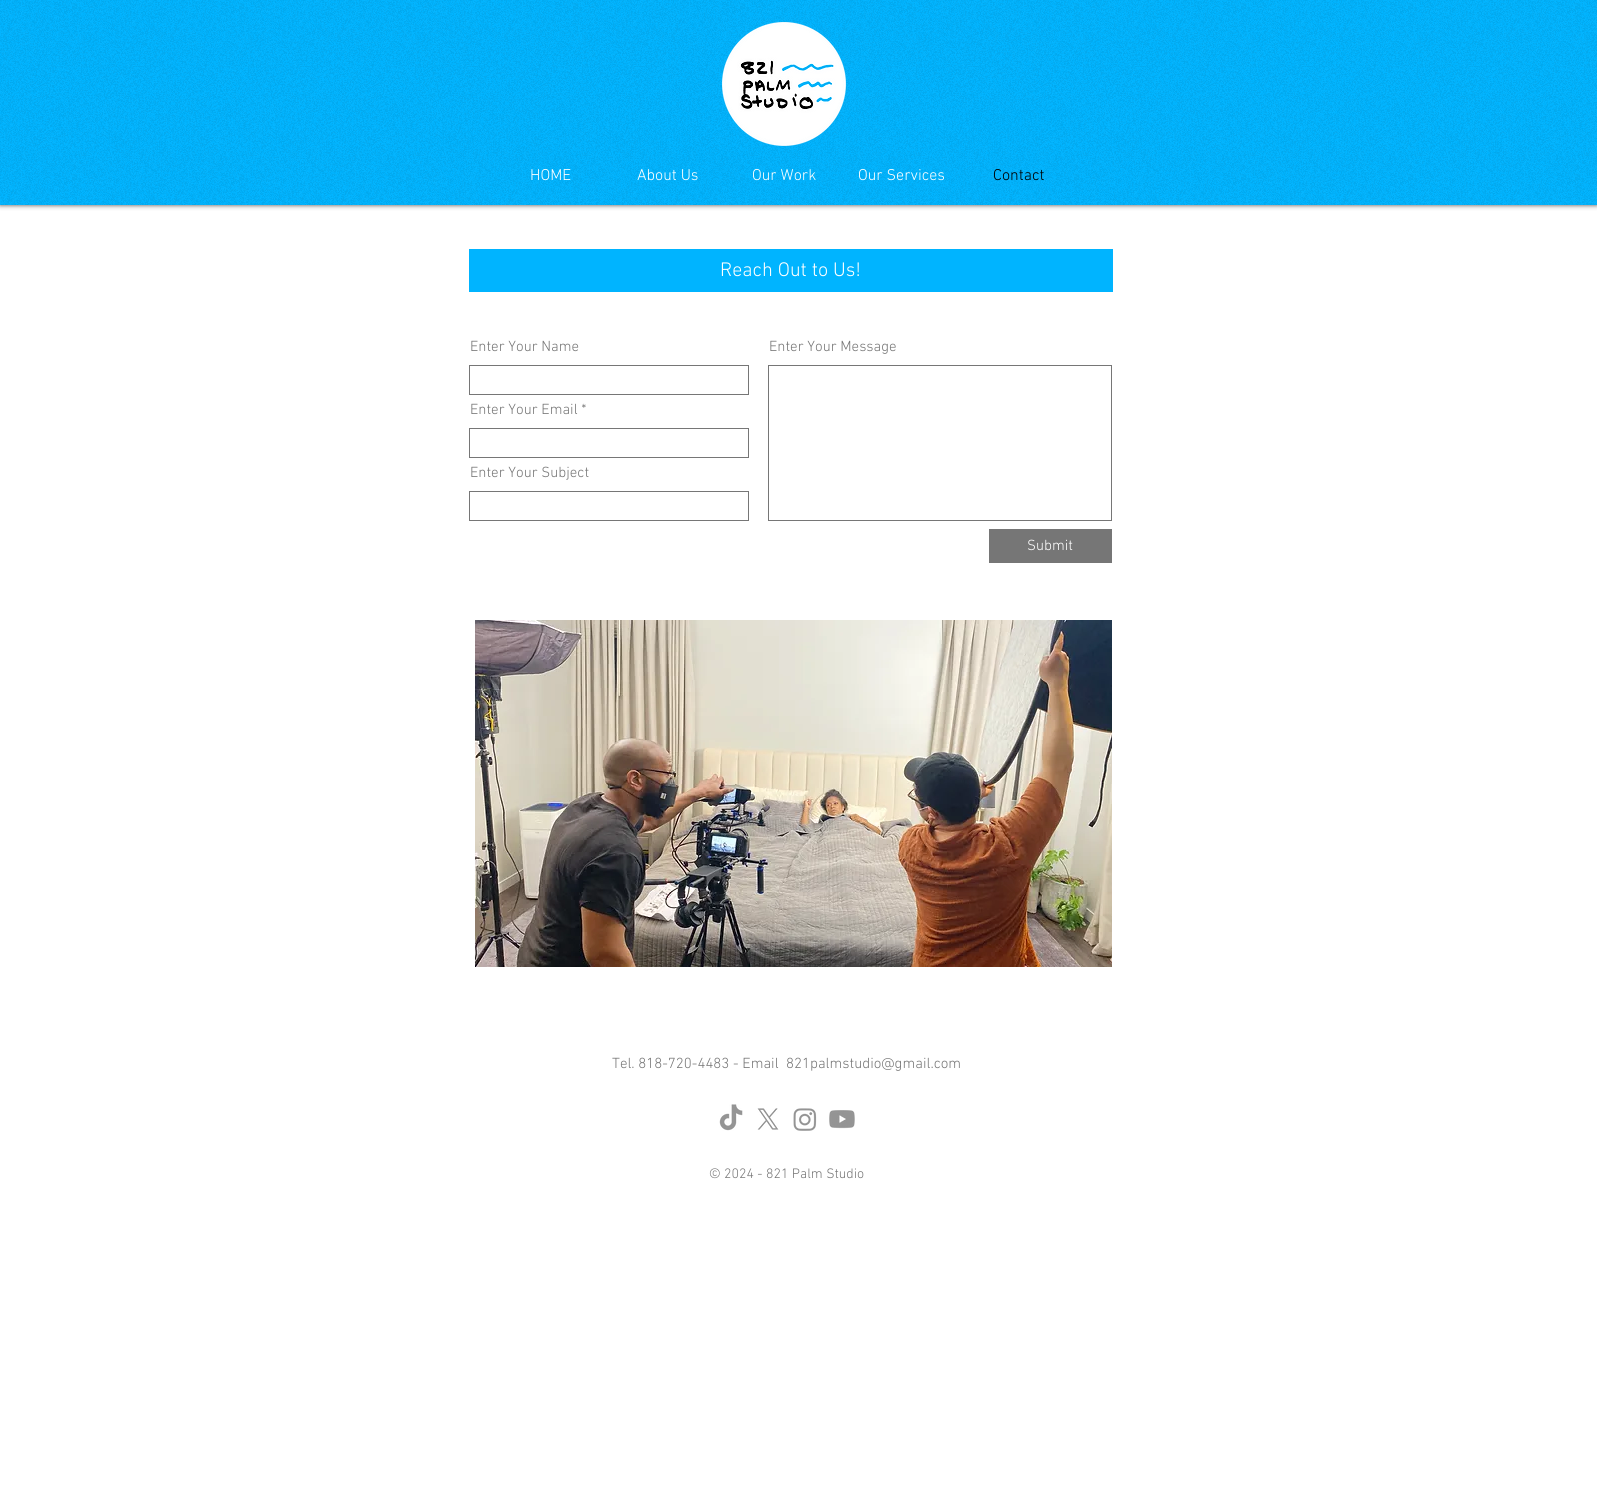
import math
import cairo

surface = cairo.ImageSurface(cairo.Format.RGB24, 1597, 1507)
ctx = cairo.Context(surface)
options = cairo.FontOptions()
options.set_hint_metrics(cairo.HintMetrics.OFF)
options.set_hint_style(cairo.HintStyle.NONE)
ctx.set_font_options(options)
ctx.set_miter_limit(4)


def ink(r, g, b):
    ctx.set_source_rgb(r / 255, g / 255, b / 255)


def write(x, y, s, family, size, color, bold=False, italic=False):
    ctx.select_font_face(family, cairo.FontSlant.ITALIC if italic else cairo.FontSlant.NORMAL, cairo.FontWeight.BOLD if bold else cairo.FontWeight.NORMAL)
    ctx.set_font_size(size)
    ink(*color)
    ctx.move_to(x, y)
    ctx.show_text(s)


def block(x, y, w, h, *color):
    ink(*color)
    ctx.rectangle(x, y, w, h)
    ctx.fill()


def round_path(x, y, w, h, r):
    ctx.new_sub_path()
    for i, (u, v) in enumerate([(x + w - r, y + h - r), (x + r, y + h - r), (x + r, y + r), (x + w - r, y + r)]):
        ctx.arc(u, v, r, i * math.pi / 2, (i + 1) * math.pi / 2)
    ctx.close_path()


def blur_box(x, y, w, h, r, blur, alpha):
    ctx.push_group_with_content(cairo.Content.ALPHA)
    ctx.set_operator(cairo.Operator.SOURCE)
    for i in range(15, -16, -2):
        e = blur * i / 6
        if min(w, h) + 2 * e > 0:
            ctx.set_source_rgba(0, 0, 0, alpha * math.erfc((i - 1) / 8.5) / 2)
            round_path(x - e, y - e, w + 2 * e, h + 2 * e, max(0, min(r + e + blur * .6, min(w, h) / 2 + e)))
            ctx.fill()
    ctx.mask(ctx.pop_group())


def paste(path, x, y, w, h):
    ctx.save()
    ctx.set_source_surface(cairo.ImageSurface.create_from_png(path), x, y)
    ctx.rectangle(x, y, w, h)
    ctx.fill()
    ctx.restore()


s1 = dict(family="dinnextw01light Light", size=16, color=(255, 255, 255))
s2 = dict(family="dinnextw01light Light", size=16, color=(0, 0, 0))
s3 = dict(family="dinnextw01light Light", size=20, color=(255, 255, 255))
s4 = dict(family="dinnextw01light Light", size=15, color=(118, 118, 118))
s5 = dict(family="dinnextw01light Light", size=15, color=(255, 255, 255))
s6 = dict(family="dinnextw01light Light", size=14, color=(118, 118, 118))

ink(255, 255, 255)
ctx.paint()
ink(0, 0, 0)
blur_box(0, 0, 1597, 205, 0, 2.5, 0.7)
block(0, 0, 1597, 205, 0, 180, 255)
paste("pic1.png", 0, 0, 1597, 205)
paste("pic2.png", 722, 22, 124, 124)
write(530, 180, "HOME", **s1)
write(637, 180, "About Us", **s1)
write(752, 180, "Our Work", **s1)
write(858, 180, "Our Services", **s1)
write(993, 180, "Contact", **s2)
block(469, 249, 644, 43, 0, 180, 255)
write(720, 276, "Reach Out to Us!", **s3)
write(470, 351, "Enter Your Name", **s4)
ctx.rectangle(469.5, 365.5, 279, 29)
ctx.set_line_width(1)
ctx.stroke()
write(769, 351, "Enter Your Message", **s4)
ctx.rectangle(768.5, 365.5, 343, 155)
ctx.stroke()
write(470, 414, "Enter Your Email *", **s4)
ctx.rectangle(469.5, 428.5, 279, 29)
ctx.stroke()
write(470, 477, "Enter Your Subject", **s4)
ctx.rectangle(469.5, 491.5, 279, 29)
ctx.stroke()
block(989, 529, 123, 34, 118, 118, 118)
write(1027, 550, "Submit", **s5)
paste("pic3.png", 475, 620, 637, 347)
write(612, 1068, "Tel. 818-720-4483 - Email", **s4)
write(786, 1068, "821palmstudio@gmail.com", **s4)
paste("pic4.png", 719, 1104, 24, 27)
paste("pic5.png", 757, 1108, 22, 22)
paste("pic6.png", 793, 1108, 24, 23)
paste("pic7.png", 829, 1110, 26, 19)
write(709, 1178, "© 2024 - 821 Palm Studio", **s6)
surface.write_to_png("screenshot.png")
